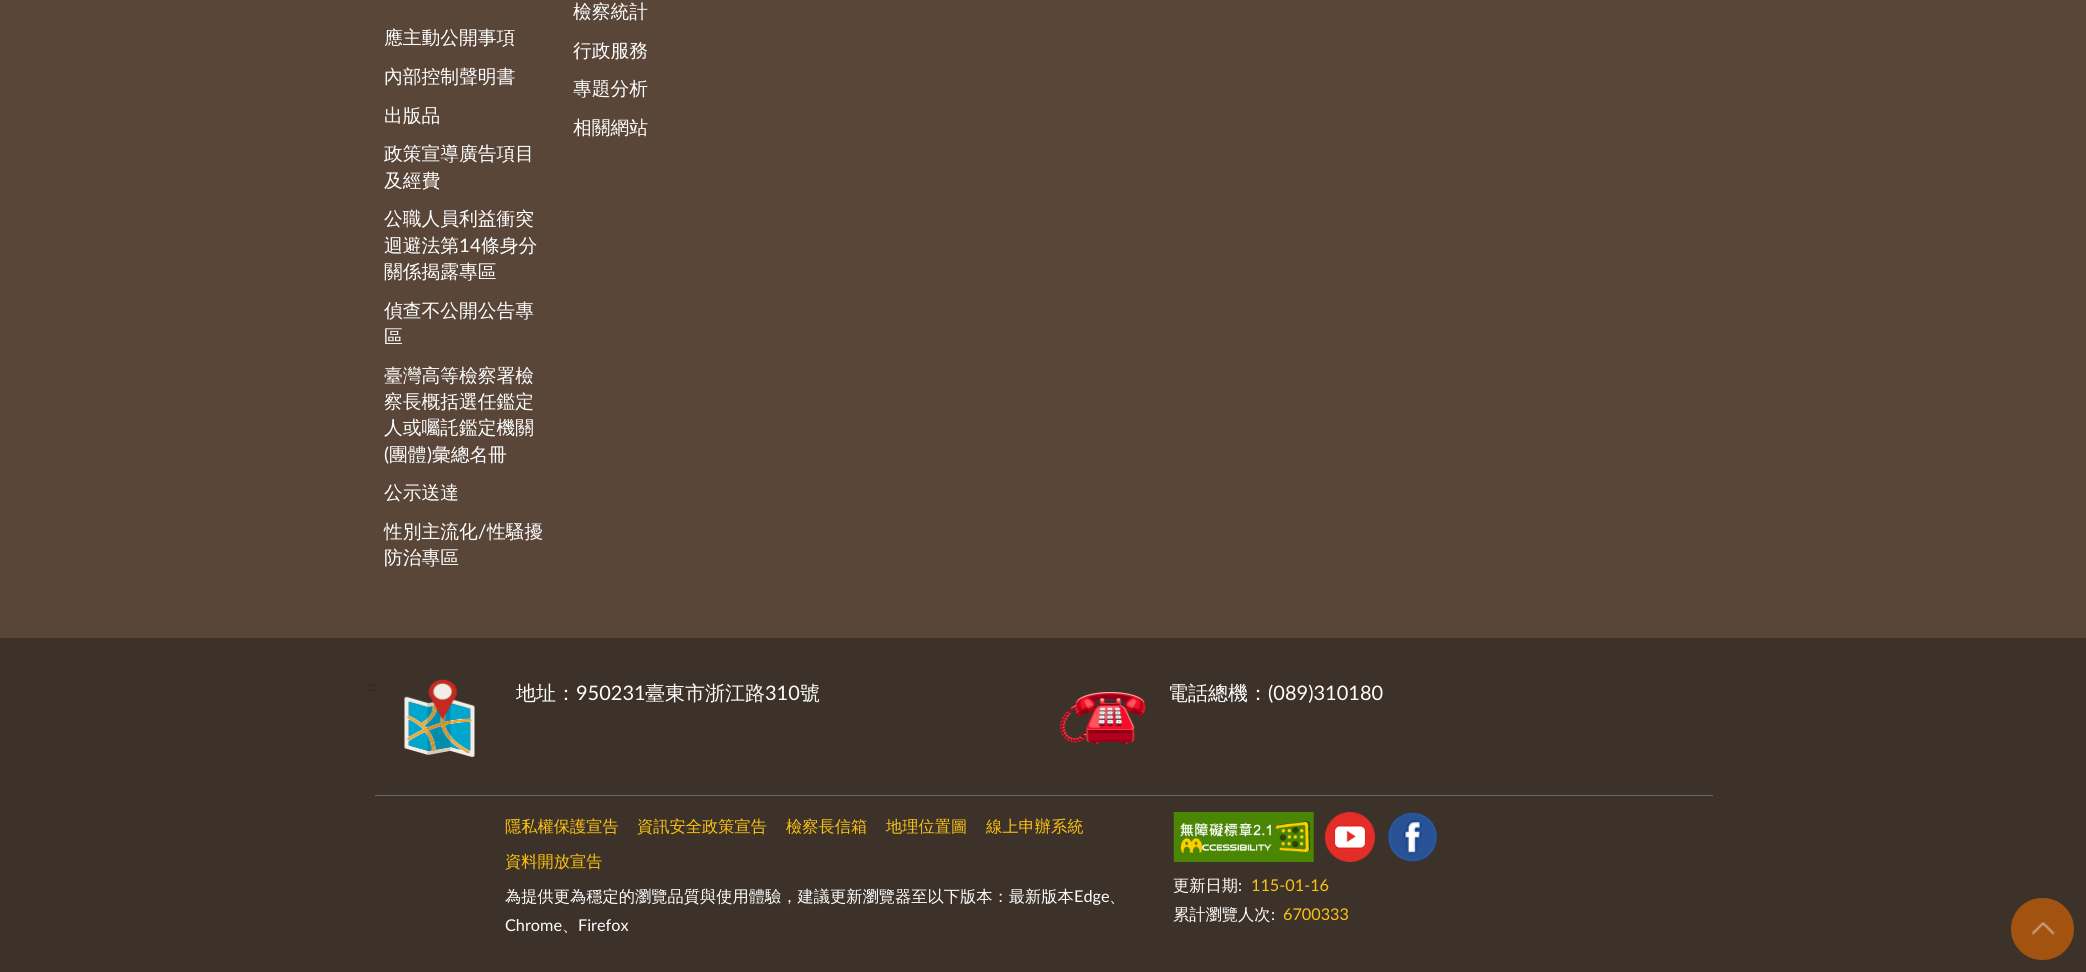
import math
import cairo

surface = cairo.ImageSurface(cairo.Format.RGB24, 2086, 972)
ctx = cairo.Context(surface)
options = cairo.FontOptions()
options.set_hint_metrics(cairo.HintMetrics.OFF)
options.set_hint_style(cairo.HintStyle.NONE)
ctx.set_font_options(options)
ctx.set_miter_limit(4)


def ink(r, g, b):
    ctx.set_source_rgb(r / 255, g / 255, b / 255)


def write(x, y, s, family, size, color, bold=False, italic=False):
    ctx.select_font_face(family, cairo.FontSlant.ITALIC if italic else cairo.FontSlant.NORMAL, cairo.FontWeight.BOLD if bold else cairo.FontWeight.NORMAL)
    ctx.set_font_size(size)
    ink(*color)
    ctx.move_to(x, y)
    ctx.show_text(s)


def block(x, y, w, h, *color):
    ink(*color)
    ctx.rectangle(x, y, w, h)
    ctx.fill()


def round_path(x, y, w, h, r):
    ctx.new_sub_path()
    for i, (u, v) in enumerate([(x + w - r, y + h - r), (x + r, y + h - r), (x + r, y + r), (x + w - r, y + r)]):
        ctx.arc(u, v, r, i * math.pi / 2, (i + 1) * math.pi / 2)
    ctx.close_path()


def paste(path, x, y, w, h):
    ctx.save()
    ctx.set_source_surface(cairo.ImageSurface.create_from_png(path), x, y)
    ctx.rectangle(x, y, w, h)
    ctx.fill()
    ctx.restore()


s1 = dict(family="WenQuanYi Zen Hei Medium", size=18.75, color=(255, 255, 255))
s2 = dict(family="Lato", size=18.75, color=(255, 255, 255))
s3 = dict(family="Lato", size=13, color=(34, 34, 34))
s4 = dict(family="WenQuanYi Zen Hei Medium", size=20, color=(255, 255, 255))
s5 = dict(family="Lato", size=20, color=(255, 255, 255))
s6 = dict(family="WenQuanYi Zen Hei Medium", size=16.25, color=(252, 194, 17))
s7 = dict(family="WenQuanYi Zen Hei Medium", size=16.25, color=(255, 255, 255))
s8 = dict(family="Lato", size=16.25, color=(255, 255, 255))
s9 = dict(family="Lato", size=16.25, color=(252, 194, 17))

ink(61, 50, 41)
ctx.paint()
block(0, 0, 2086, 638, 89, 70, 57)
write(384, 44, "應主動公開事項", **s1)
write(384, 83, "內部控制聲明書", **s1)
write(384, 122, "出版品", **s1)
write(384, 160, "政策宣導廣告項目", **s1)
write(384, 187, "及經費", **s1)
write(384, 225, "公職人員利益衝突", **s1)
write(384, 252, "迴避法第", **s1)
write(459, 252, "14", **s2)
write(481, 252, "條身分", **s1)
write(384, 278, "關係揭露專區", **s1)
write(384, 317, "偵查不公開公告專", **s1)
write(384, 343, "區", **s1)
write(384, 382, "臺灣高等檢察署檢", **s1)
write(384, 408, "察長概括選任鑑定", **s1)
write(384, 434, "人或囑託鑑定機關", **s1)
write(384, 461, "(", **s2)
write(389, 461, "團體", **s1)
write(427, 461, ")", **s2)
write(432, 461, "彙總名冊", **s1)
write(384, 499, "公示送達", **s1)
write(384, 538, "性別主流化", **s1)
write(478, 538, "/", **s2)
write(487, 538, "性騷擾", **s1)
write(384, 564, "防治專區", **s1)
write(573, 18, "檢察統計", **s1)
write(573, 57, "行政服務", **s1)
write(573, 95, "專題分析", **s1)
write(573, 134, "相關網站", **s1)
write(368, 691, ":::", **s3)
paste("pic1.png", 404, 679, 71, 78)
write(516, 700, "地址：", **s4)
write(576, 700, "950231", **s5)
write(645, 700, "臺東市浙江路", **s4)
write(765, 700, "310", **s5)
write(800, 700, "號", **s4)
paste("pic2.png", 1060, 692, 86, 52)
write(1168, 700, "電話總機：", **s4)
write(1268, 700, "(089)310180", **s5)
block(375, 795, 1338, 1, 102, 102, 102)
write(505, 832, "隱私權保護宣告", **s6)
write(637, 832, "資訊安全政策宣告", **s6)
write(786, 832, "檢察長信箱", **s6)
write(886, 832, "地理位置圖", **s6)
write(986, 832, "線上申辦系統", **s6)
write(505, 867, "資料開放宣告", **s6)
write(505, 902, "為提供更為穩定的瀏覽品質與使用體驗，建議更新瀏覽器至以下版本：最新版本", **s7)
write(1074, 902, "Edge", **s8)
write(1109, 902, "、", **s7)
write(505, 931, "Chrome", **s8)
write(562, 931, "、", **s7)
write(578, 931, "Firefox", **s8)
paste("pic3.png", 1173, 812, 141, 50)
paste("pic4.png", 1325, 812, 50, 50)
paste("pic5.png", 1387, 812, 51, 50)
write(1173, 891, "更新日期", **s7)
write(1238, 891, ":", **s8)
write(1251, 891, "115-01-16", **s9)
write(1173, 920, "累計瀏覽人次", **s7)
write(1271, 920, ":", **s8)
write(1283, 920, "6700333", **s9)
ink(163, 83, 16)
round_path(2011, 898, 63, 62, 31)
ctx.fill()
paste("pic6.png", 2032, 922, 23, 14)
surface.write_to_png("screenshot.png")
